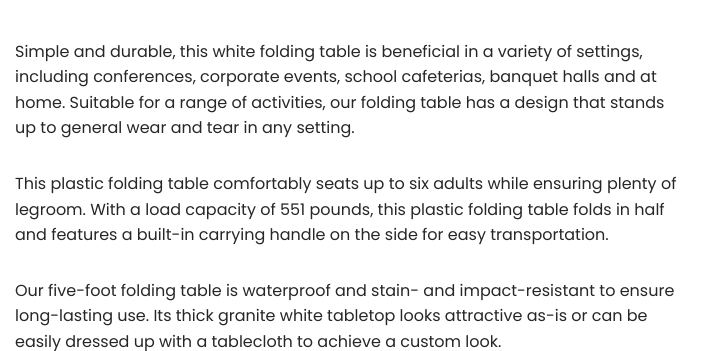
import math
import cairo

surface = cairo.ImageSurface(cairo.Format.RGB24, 702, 351)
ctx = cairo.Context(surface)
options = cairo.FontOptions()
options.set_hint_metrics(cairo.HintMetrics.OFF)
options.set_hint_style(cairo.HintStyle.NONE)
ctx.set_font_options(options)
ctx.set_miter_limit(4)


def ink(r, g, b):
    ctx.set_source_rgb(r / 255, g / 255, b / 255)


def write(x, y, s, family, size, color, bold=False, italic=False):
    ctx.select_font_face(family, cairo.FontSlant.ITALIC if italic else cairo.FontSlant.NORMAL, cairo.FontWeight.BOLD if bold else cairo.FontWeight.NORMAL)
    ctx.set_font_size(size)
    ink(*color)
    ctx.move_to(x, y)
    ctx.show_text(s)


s1 = dict(family="Poppins", size=16, color=(39, 38, 38))

ink(255, 255, 255)
ctx.paint()
write(15, 57, "Simple and durable, this white folding table is beneficial in a variety of settings,", **s1)
write(15, 82, "including conferences, corporate events, school cafeterias, banquet halls and at", **s1)
write(15, 108, "home. Suitable for a range of activities, our folding table has a design that stands", **s1)
write(15, 133, "up to general wear and tear in any setting.", **s1)
write(15, 189, "This plastic folding table comfortably seats up to six adults while ensuring plenty of", **s1)
write(15, 215, "legroom. With a load capacity of 551 pounds, this plastic folding table folds in half", **s1)
write(15, 240, "and features a built-in carrying handle on the side for easy transportation.", **s1)
write(15, 296, "Our five-foot folding table is waterproof and stain- and impact-resistant to ensure", **s1)
write(15, 321, "long-lasting use. Its thick granite white tabletop looks attractive as-is or can be", **s1)
write(15, 347, "easily dressed up with a tablecloth to achieve a custom look.", **s1)
surface.write_to_png("screenshot.png")
